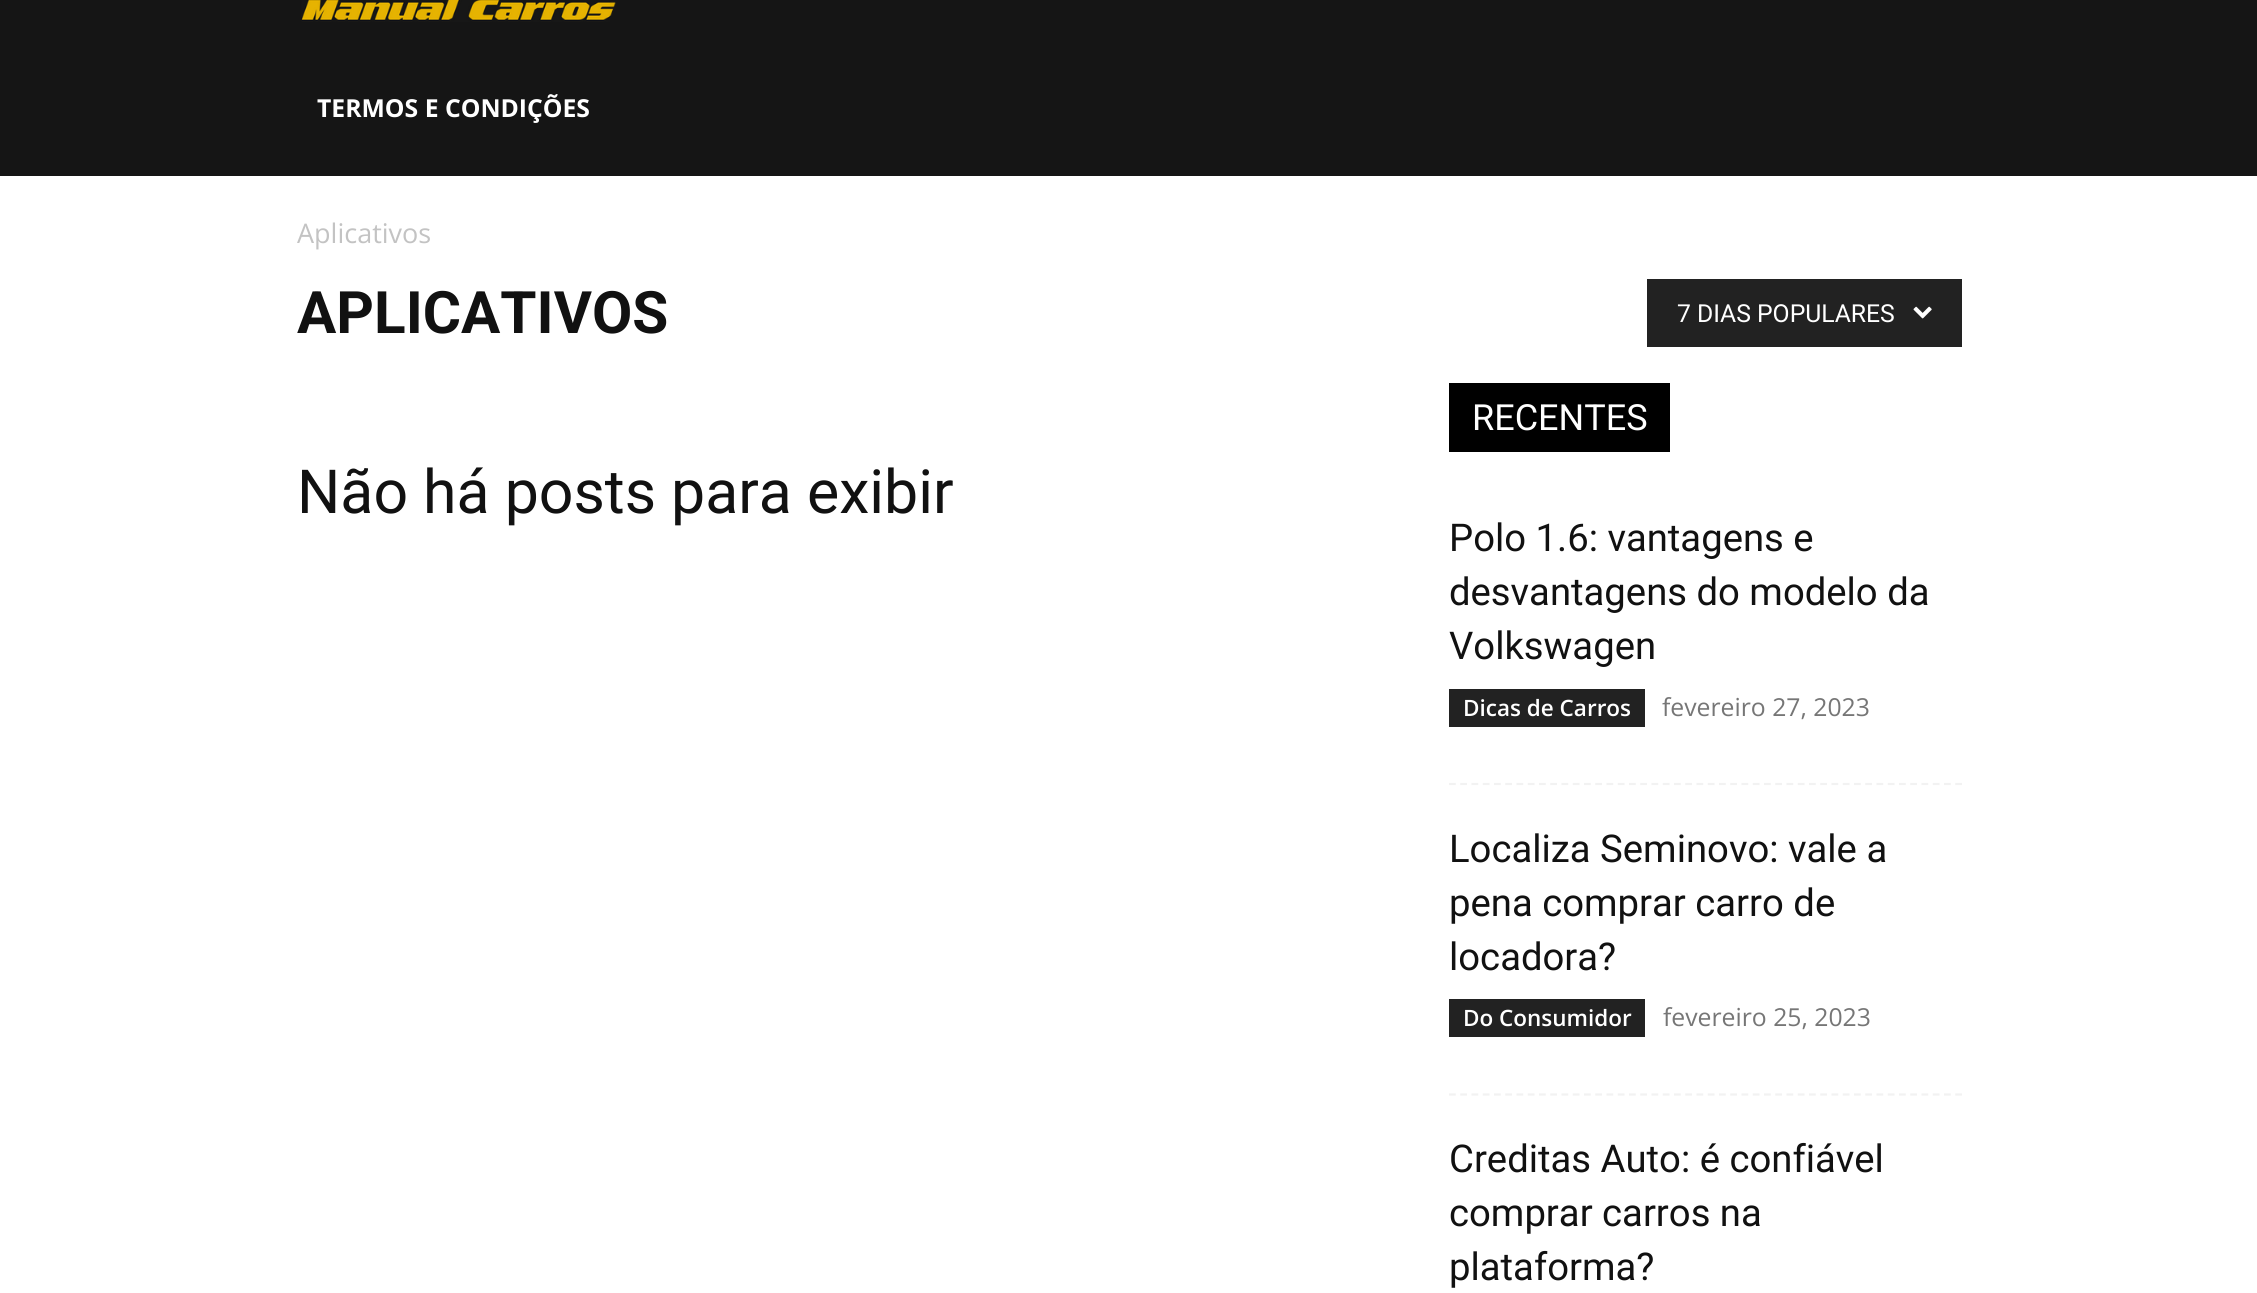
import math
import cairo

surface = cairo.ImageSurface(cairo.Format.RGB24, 2257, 1293)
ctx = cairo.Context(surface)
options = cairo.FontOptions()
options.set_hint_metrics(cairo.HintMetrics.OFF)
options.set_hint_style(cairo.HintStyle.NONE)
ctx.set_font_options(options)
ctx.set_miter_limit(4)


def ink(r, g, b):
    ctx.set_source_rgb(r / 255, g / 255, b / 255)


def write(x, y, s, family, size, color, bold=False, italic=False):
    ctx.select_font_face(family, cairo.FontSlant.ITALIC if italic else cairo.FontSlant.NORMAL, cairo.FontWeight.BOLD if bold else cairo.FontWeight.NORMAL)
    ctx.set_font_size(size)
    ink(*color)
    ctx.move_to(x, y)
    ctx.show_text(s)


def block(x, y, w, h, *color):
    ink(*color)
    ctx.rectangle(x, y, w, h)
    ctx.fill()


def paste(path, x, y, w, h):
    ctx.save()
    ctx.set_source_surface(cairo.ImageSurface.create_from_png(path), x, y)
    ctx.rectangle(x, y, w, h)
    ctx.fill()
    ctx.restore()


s1 = dict(family="Open Sans", size=24.75, color=(255, 255, 255), bold=True)
s2 = dict(family="Open Sans", size=27, color=(195, 195, 195))
s3 = dict(family="Roboto", size=58.5, color=(17, 17, 17), bold=True)
s4 = dict(family="Roboto", size=24.75, color=(255, 255, 255))
s5 = dict(family="Roboto", size=60.75, color=(17, 17, 17))
s6 = dict(family="Roboto", size=36, color=(255, 255, 255))
s7 = dict(family="Roboto", size=38.25, color=(17, 17, 17))
s8 = dict(family="Open Sans SemiBold", size=22.5, color=(255, 255, 255))
s9 = dict(family="Open Sans", size=24.75, color=(118, 118, 118))

ink(255, 255, 255)
ctx.paint()
block(0, 0, 2257, 176, 21, 21, 21)
paste("pic1.png", 301, 0, 315, 22)
write(317, 117, "TERMOS E CONDIÇÕES", **s1)
write(297, 243, "Aplicativos", **s2)
write(297, 333, "APLICATIVOS", **s3)
block(1647, 279, 315, 68, 34, 34, 34)
write(1677, 322, "7 DIAS POPULARES", **s4)
paste("pic2.png", 1913, 306, 19, 13)
write(297, 513, "Não há posts para exibir", **s5)
block(1449, 383, 221, 69, 0, 0, 0)
write(1472, 430, "RECENTES", **s6)
ctx.new_path()
ctx.move_to(1449, 784)
ctx.line_to(1962, 784)
ink(242, 242, 242)
ctx.set_line_width(2.2)
ctx.set_dash([6.75, 4.5])
ctx.stroke()
write(1449, 551, "Polo 1.6: vantagens e", **s7)
write(1449, 605, "desvantagens do modelo da", **s7)
write(1449, 659, "Volkswagen", **s7)
block(1449, 689, 196, 38, 34, 34, 34)
write(1463, 716, "Dicas de Carros", **s8)
write(1662, 716, "fevereiro 27, 2023", **s9)
ctx.new_path()
ctx.move_to(1449, 1094.5)
ctx.line_to(1962, 1094.5)
ink(242, 242, 242)
ctx.stroke()
write(1449, 862, "Localiza Seminovo: vale a", **s7)
write(1449, 916, "pena comprar carro de", **s7)
write(1449, 970, "locadora?", **s7)
block(1449, 999, 196, 38, 34, 34, 34)
write(1463, 1026, "Do Consumidor", **s8)
write(1663, 1026, "fevereiro 25, 2023", **s9)
write(1449, 1172, "Creditas Auto: é confiável", **s7)
write(1449, 1226, "comprar carros na", **s7)
write(1449, 1280, "plataforma?", **s7)
surface.write_to_png("screenshot.png")
